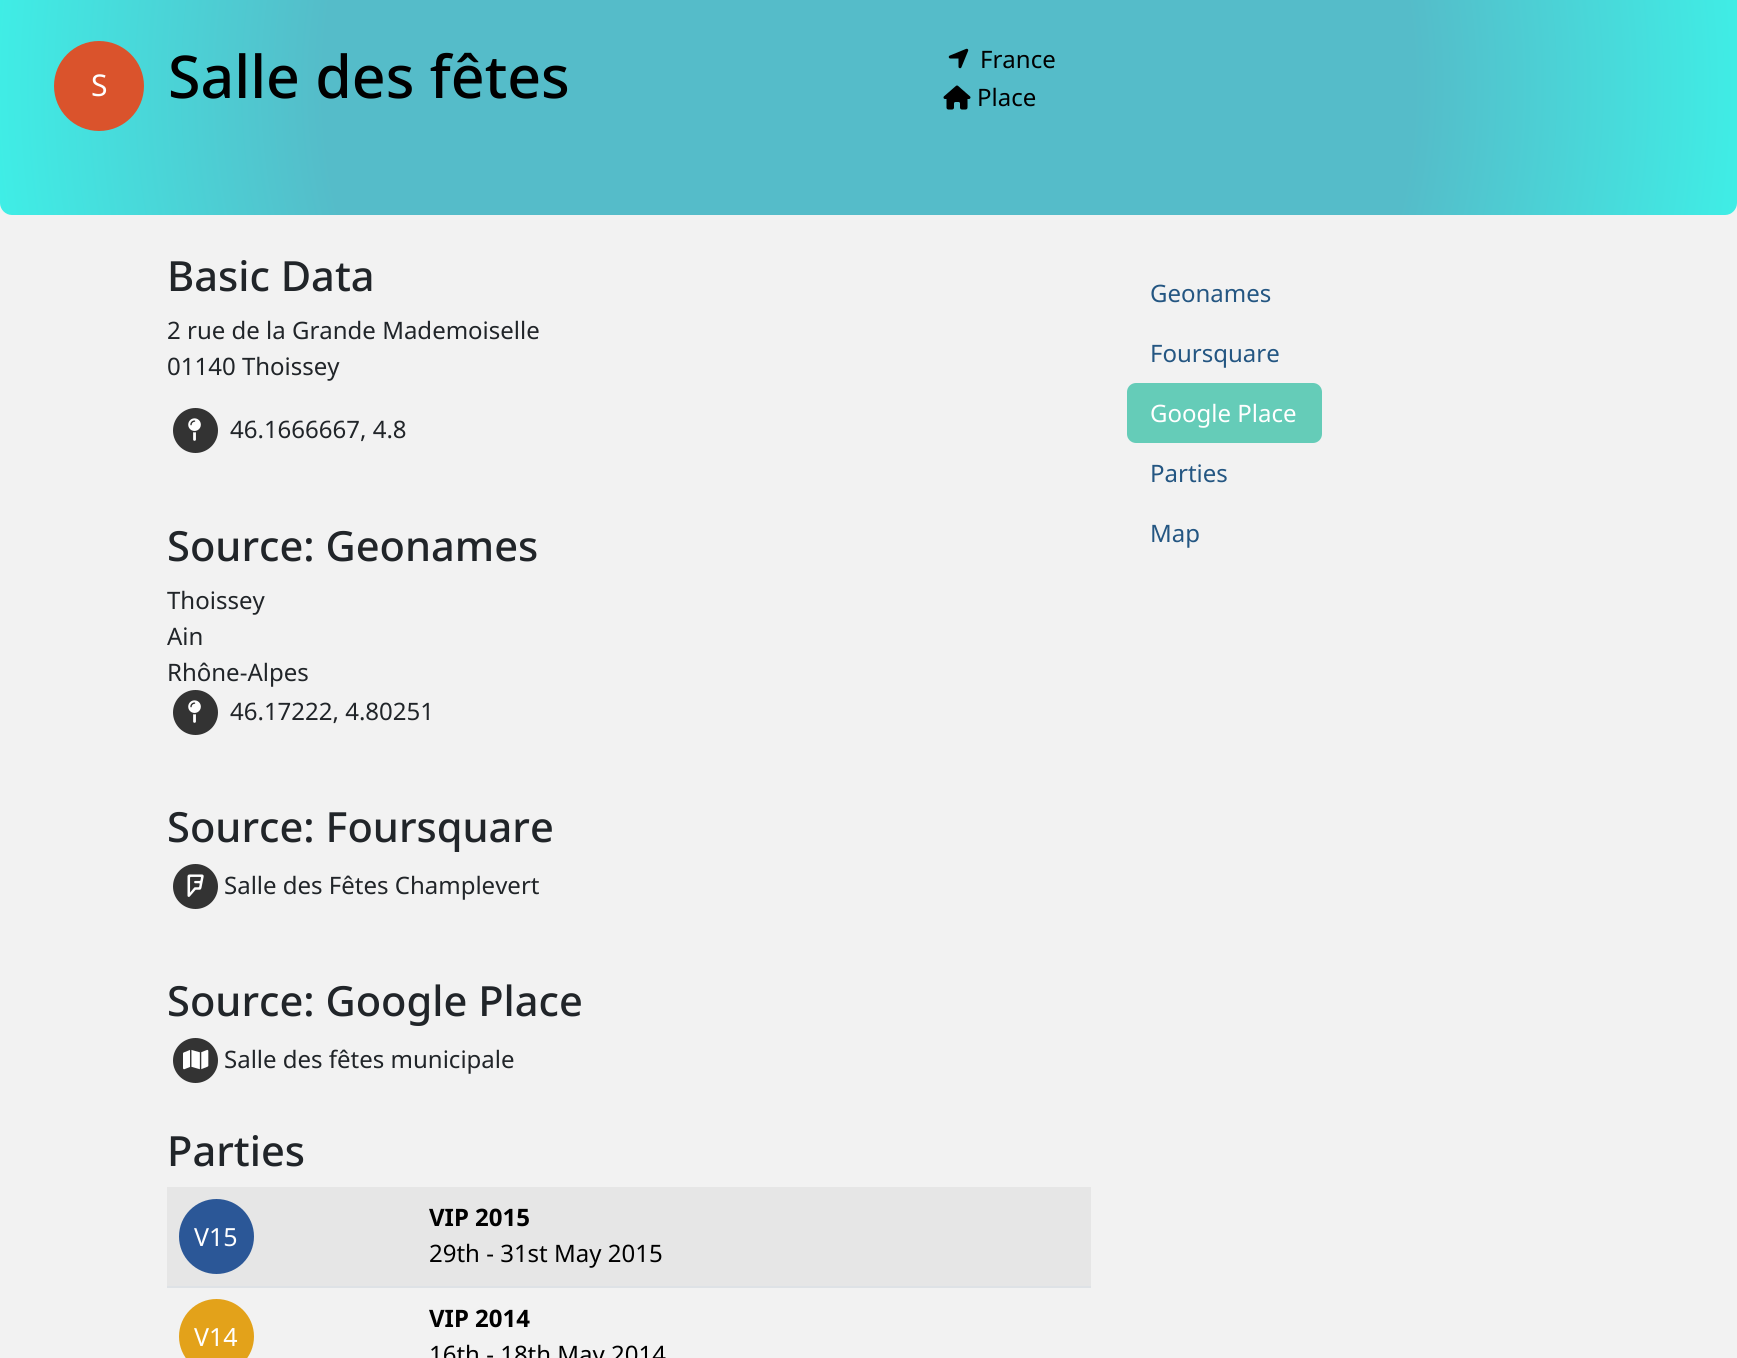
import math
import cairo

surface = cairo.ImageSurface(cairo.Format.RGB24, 1737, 1358)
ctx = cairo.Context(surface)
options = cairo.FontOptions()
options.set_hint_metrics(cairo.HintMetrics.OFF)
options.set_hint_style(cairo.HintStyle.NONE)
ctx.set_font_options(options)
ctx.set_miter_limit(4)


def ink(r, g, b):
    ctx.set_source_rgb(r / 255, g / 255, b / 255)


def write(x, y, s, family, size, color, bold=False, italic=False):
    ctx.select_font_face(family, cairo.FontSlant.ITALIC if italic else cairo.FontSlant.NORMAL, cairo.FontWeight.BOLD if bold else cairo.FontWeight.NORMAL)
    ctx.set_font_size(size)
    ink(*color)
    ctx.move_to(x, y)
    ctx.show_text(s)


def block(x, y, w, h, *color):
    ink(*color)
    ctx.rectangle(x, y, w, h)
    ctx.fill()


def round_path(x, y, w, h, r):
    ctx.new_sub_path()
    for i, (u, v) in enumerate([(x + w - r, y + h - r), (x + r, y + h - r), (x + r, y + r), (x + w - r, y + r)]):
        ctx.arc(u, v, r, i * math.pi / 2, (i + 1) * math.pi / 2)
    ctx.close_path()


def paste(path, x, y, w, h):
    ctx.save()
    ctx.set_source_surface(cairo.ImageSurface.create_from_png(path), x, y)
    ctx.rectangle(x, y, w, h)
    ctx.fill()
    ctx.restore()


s1 = dict(family="Noto Sans", size=30, color=(255, 255, 255))
s2 = dict(family="Noto Sans Medium", size=59, color=(0, 0, 0))
s3 = dict(family="Noto Sans", size=24, color=(0, 0, 0))
s4 = dict(family="Noto Sans Medium", size=41.6, color=(33, 37, 41))
s5 = dict(family="Noto Sans", size=24, color=(33, 37, 41))
s6 = dict(family="Noto Sans", size=25, color=(255, 255, 255))
s7 = dict(family="Noto Sans", size=24, color=(0, 0, 0), bold=True)
s8 = dict(family="Noto Sans", size=24, color=(36, 86, 130))
s9 = dict(family="Noto Sans", size=24, color=(255, 255, 255))

ink(242, 242, 242)
ctx.paint()
gradient = cairo.RadialGradient(869, 86, 0, 869, 86, 878)
gradient.add_color_stop_rgba(0, 0.333, 0.737, 0.788, 1)
gradient.add_color_stop_rgba(0.62, 0.333, 0.737, 0.788, 1)
gradient.add_color_stop_rgba(1, 0.247, 0.933, 0.902, 1)
ctx.set_source(gradient)
ctx.new_path()
ctx.move_to(0, -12)
ctx.line_to(1737, -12)
ctx.line_to(1737, 203)
ctx.curve_to(1737, 209.5, 1731.5, 215, 1725, 215)
ctx.line_to(12, 215)
ctx.curve_to(5.5, 215, 0, 209.5, 0, 203)
ctx.close_path()
ctx.fill()
ink(218, 83, 44)
ctx.arc(99, 86, 45, 0, 2 * math.pi)
ctx.fill()
write(91, 96, "S", **s1)
write(168, 98, "Salle des fêtes", **s2)
paste("pic1.png", 948, 48, 21, 21)
write(980, 68, "France", **s3)
paste("pic2.png", 943, 85, 28, 25)
write(977, 106, "Place", **s3)
write(167, 291, "Basic Data", **s4)
write(167, 339, "2 rue de la Grande Mademoiselle", **s5)
write(167, 375, "01140 Thoissey", **s5)
ink(51, 51, 51)
ctx.new_path()
ctx.arc(195.5, 430.5, 22.5, 0, 2 * math.pi)
ctx.fill()
paste("pic3.png", 188, 418, 13, 23)
write(230, 438, "46.1666667, 4.8", **s5)
write(167, 561, "Source: Geonames", **s4)
write(167, 609, "Thoissey", **s5)
write(167, 645, "Ain", **s5)
write(167, 681, "Rhône-Alpes", **s5)
ink(51, 51, 51)
ctx.new_path()
ctx.arc(195.5, 712.5, 22.5, 0, 2 * math.pi)
ctx.fill()
paste("pic3.png", 188, 700, 13, 23)
write(230, 720, "46.17222, 4.80251", **s5)
write(167, 842, "Source: Foursquare", **s4)
ink(51, 51, 51)
ctx.new_path()
ctx.arc(195.5, 886.5, 22.5, 0, 2 * math.pi)
ctx.fill()
paste("pic4.png", 187, 874, 17, 23)
write(224, 894, "Salle des Fêtes Champlevert", **s5)
write(167, 1016, "Source: Google Place", **s4)
ink(51, 51, 51)
ctx.new_path()
ctx.arc(195.5, 1060.5, 22.5, 0, 2 * math.pi)
ctx.fill()
paste("pic5.png", 183, 1049, 26, 21)
write(224, 1068, "Salle des fêtes municipale", **s5)
write(167, 1166, "Parties", **s4)
block(167, 1187, 924, 99, 230, 230, 230)
ink(43, 87, 151)
ctx.new_path()
ctx.arc(216.5, 1236.5, 37.5, 0, 2 * math.pi)
ctx.fill()
write(194, 1246, "V15", **s6)
block(167, 1286, 924, 2, 222, 226, 230)
write(429, 1226, "VIP 2015", **s7)
write(429, 1262, "29th - 31st May 2015", **s3)
ink(227, 162, 26)
ctx.new_path()
ctx.arc(216.5, 1336.5, 37.5, 0, 2 * math.pi)
ctx.fill()
write(194, 1346, "V14", **s6)
write(429, 1327, "VIP 2014", **s7)
write(429, 1363, "16th - 18th May 2014", **s3)
write(1150, 302, "Geonames", **s8)
write(1150, 362, "Foursquare", **s8)
ink(101, 204, 184)
round_path(1127, 383, 195, 60, 9)
ctx.fill()
write(1150, 422, "Google Place", **s9)
write(1150, 482, "Parties", **s8)
write(1150, 542, "Map", **s8)
surface.write_to_png("screenshot.png")
